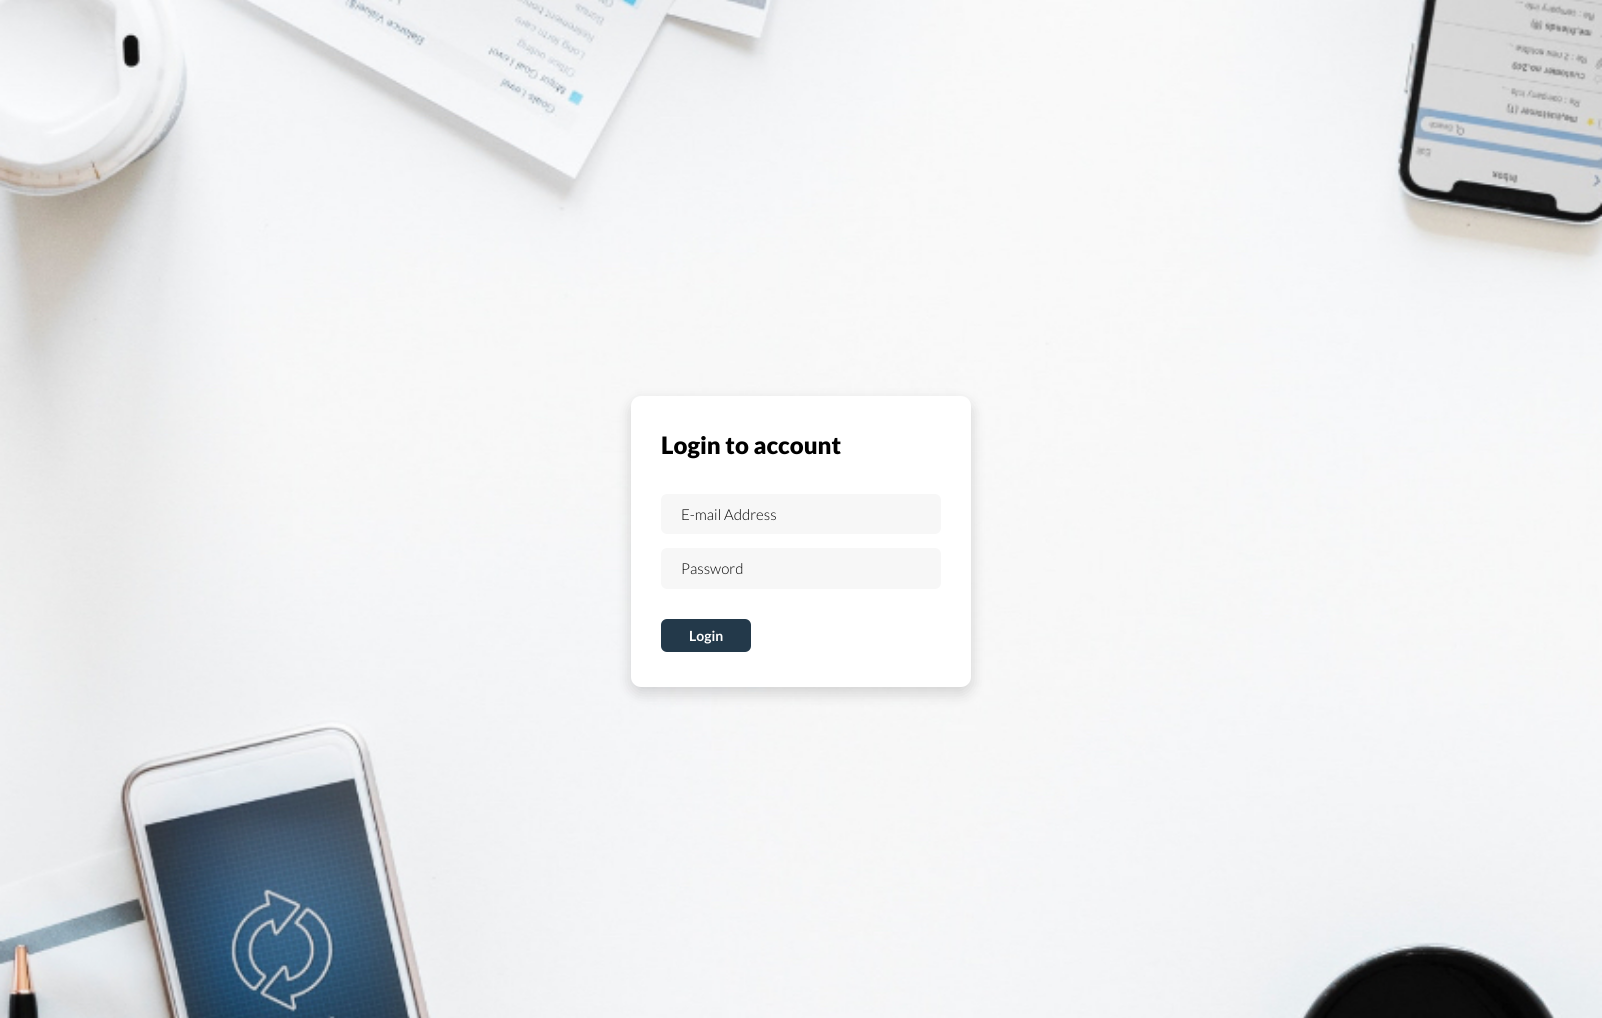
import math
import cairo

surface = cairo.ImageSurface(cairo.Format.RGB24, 1602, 1018)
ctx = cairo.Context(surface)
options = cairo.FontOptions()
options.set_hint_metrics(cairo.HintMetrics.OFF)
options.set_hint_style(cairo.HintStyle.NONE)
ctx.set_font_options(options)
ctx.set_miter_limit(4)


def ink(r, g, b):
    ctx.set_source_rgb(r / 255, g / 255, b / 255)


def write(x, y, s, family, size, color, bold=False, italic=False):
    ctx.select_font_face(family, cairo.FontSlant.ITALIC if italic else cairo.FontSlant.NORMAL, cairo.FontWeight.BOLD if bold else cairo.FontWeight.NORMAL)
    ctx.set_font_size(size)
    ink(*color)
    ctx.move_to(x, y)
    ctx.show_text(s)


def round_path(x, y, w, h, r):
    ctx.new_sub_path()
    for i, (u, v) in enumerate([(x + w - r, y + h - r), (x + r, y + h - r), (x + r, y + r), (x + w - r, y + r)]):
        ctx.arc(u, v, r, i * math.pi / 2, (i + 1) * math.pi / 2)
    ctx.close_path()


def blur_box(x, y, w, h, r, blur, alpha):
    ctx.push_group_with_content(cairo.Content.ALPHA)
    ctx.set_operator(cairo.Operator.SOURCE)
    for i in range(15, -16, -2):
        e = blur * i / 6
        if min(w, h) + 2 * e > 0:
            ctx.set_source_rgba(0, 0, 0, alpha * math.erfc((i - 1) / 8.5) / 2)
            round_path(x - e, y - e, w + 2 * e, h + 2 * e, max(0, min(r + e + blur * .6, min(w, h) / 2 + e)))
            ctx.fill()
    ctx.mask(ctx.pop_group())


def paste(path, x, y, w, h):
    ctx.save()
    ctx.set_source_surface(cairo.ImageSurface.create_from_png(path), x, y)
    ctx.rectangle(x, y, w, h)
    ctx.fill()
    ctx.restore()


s1 = dict(family="Lato Black", size=24, color=(0, 0, 0))
s2 = dict(family="Lato Light", size=15, color=(0, 0, 0))
s3 = dict(family="Lato", size=14, color=(255, 255, 255), bold=True)

ink(255, 255, 255)
ctx.paint()
paste("pic1.png", 0, 0, 1602, 1018)
ink(0, 0, 0)
blur_box(631, 402, 340, 291, 10, 7.5, 0.16)
ink(255, 255, 255)
round_path(631, 396, 340, 291, 10)
ctx.fill()
write(661, 454, "Login to account", **s1)
ink(247, 247, 247)
round_path(661, 494, 280, 40, 6)
ctx.fill()
write(681, 520, "E-mail Address", **s2)
ink(247, 247, 247)
round_path(661, 548, 280, 41, 6)
ctx.fill()
write(681, 574, "Password", **s2)
ink(35, 57, 74)
round_path(661, 619, 90, 33, 6)
ctx.fill()
write(689, 641, "Login", **s3)
surface.write_to_png("screenshot.png")
